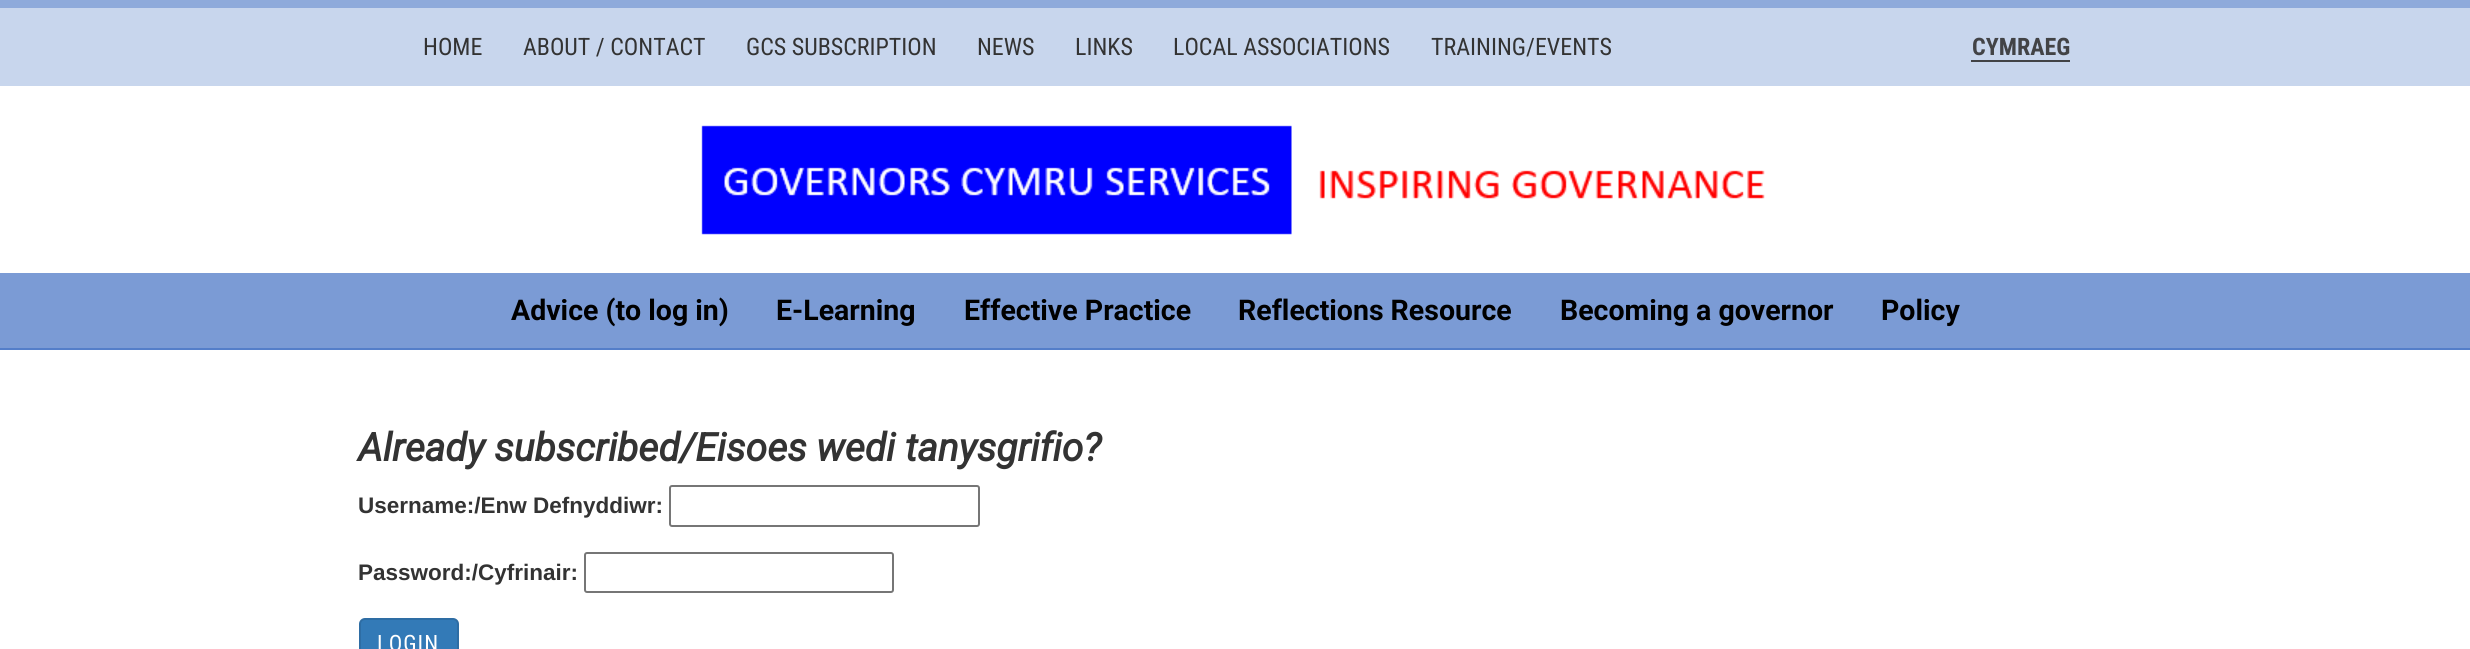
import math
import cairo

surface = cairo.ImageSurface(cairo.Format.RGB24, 2470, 649)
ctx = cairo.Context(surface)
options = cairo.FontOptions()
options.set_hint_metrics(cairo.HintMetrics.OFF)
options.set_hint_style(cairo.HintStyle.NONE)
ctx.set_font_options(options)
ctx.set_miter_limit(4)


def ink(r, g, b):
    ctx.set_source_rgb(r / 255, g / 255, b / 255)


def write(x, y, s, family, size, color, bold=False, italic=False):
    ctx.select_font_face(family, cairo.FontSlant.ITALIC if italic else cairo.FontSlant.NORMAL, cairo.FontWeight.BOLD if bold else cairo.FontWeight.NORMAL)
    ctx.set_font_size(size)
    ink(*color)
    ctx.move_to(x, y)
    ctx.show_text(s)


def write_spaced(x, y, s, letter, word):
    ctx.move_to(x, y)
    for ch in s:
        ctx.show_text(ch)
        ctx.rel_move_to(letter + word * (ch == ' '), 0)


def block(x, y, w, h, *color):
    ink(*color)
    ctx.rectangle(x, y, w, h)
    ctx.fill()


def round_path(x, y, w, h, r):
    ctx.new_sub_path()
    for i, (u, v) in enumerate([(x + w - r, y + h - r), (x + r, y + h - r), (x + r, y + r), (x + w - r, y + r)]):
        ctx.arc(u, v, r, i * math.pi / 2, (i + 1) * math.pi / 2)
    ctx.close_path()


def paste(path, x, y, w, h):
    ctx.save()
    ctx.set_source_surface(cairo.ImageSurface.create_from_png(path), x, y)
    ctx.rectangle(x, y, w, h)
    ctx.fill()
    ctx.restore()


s1 = dict(family="Roboto Condensed", size=24, color=(51, 51, 51))
s2 = dict(family="Roboto Condensed", size=24, color=(66, 67, 70), bold=True)
s3 = dict(family="Roboto", size=28.5, color=(0, 0, 0), bold=True)
s4 = dict(family="Roboto", size=39, color=(51, 51, 51), bold=True, italic=True)
s5 = dict(family="Liberation Sans", size=22.5, color=(51, 51, 51), bold=True)

ink(255, 255, 255)
ctx.paint()
block(0, 0, 2470, 8, 142, 170, 219)
block(0, 8, 2470, 78, 200, 214, 237)
write(423, 55, "HOME", **s1)
write(523, 55, "ABOUT / CONTACT", **s1)
write(746, 55, "GCS SUBSCRIPTION", **s1)
write(977, 55, "NEWS", **s1)
write(1075, 55, "LINKS", **s1)
write(1173, 55, "LOCAL ASSOCIATIONS", **s1)
write(1431, 55, "TRAINING/EVENTS", **s1)
write(1972, 55, "CYMRAEG", **s2)
block(1971, 60, 99, 2, 66, 67, 70)
paste("pic1.png", 701, 125, 1064, 110)
block(0, 273, 2470, 75, 123, 155, 213)
block(0, 348, 2470, 2, 84, 126, 201)
write(511, 320, "Advice (to log in)", **s3)
write(776, 320, "E-Learning", **s3)
write(964, 320, "Effective Practice", **s3)
write(1238, 320, "Reflections Resource", **s3)
write(1560, 320, "Becoming a governor", **s3)
write(1881, 320, "Policy", **s3)
write(358, 461, "Already subscribed/Eisoes wedi tanysgrifio?", **s4)
write(358, 513, "Username:/Enw Defnyddiwr:", **s5)
round_path(670, 486, 309, 40, 2)
ink(118, 118, 118)
ctx.stroke()
write(358, 580, "Password:/Cyfrinair:", **s5)
round_path(585, 553, 308, 39, 2)
ink(118, 118, 118)
ctx.stroke()
ink(51, 122, 183)
round_path(360, 619, 98, 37, 5)
ctx.fill_preserve()
ink(46, 109, 164)
ctx.stroke()
ctx.select_font_face("Roboto Condensed")
ink(255, 255, 255)
write_spaced(377, 651, "LOGIN", 1, 0)
surface.write_to_png("screenshot.png")
